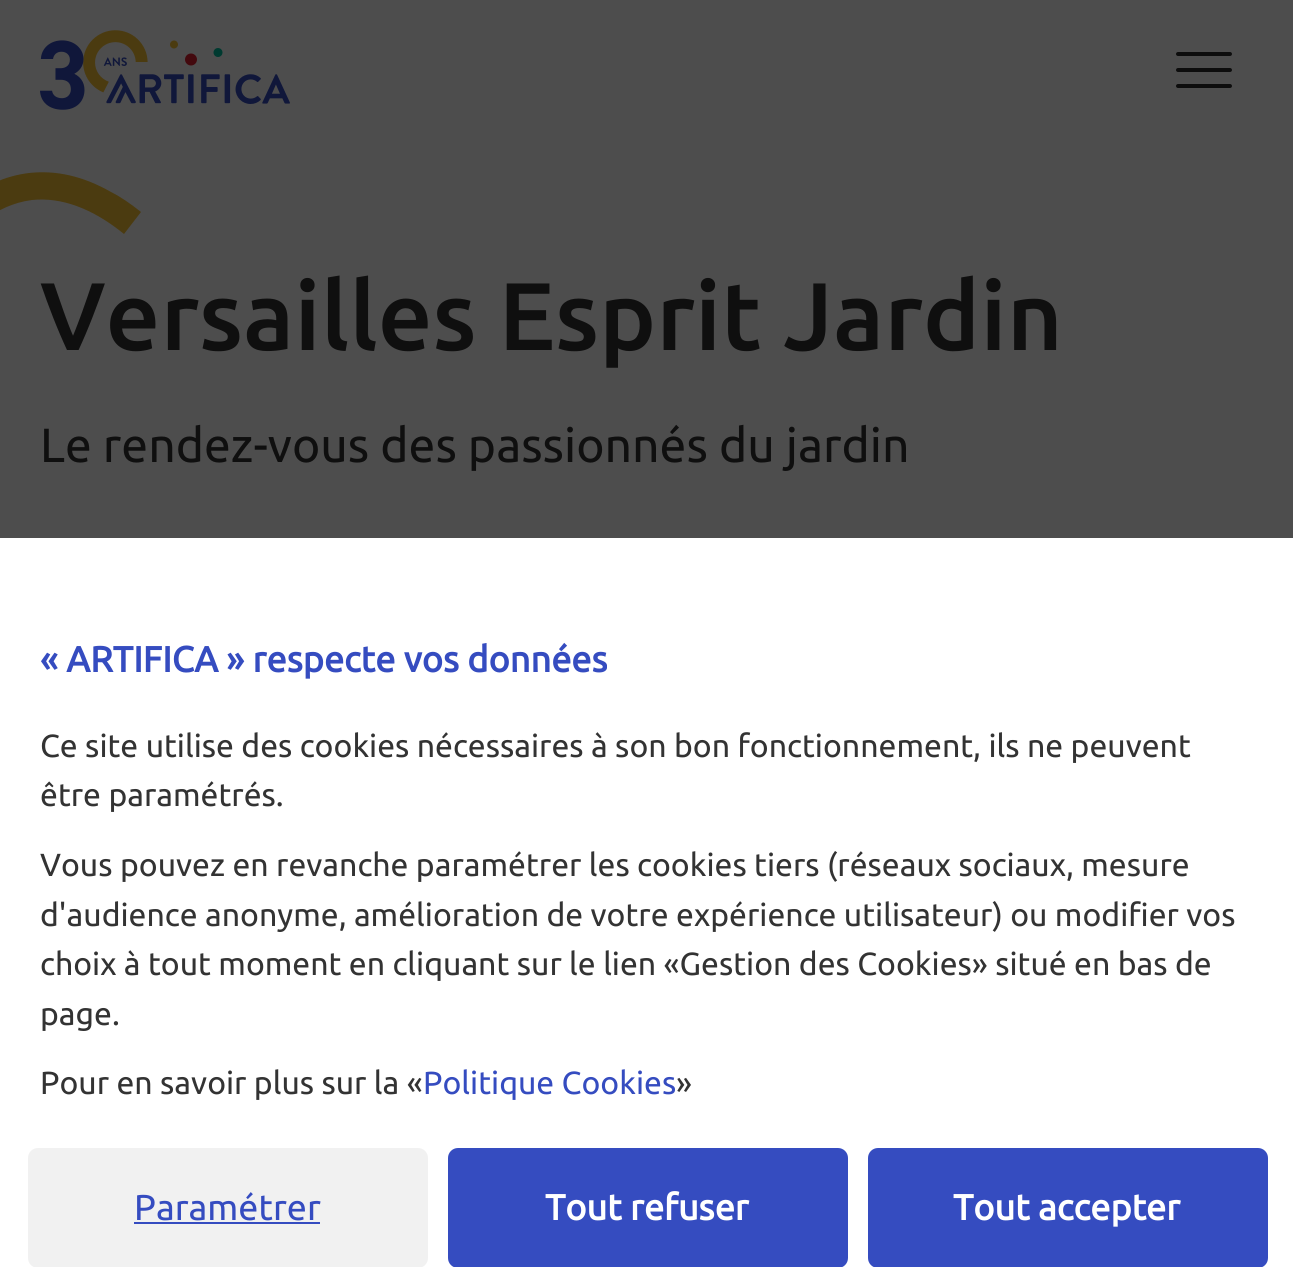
import math
import cairo

surface = cairo.ImageSurface(cairo.Format.RGB24, 1293, 1267)
ctx = cairo.Context(surface)
options = cairo.FontOptions()
options.set_hint_metrics(cairo.HintMetrics.OFF)
options.set_hint_style(cairo.HintStyle.NONE)
ctx.set_font_options(options)
ctx.set_miter_limit(4)


def ink(r, g, b):
    ctx.set_source_rgb(r / 255, g / 255, b / 255)


def write(x, y, s, family, size, color, bold=False, italic=False):
    ctx.select_font_face(family, cairo.FontSlant.ITALIC if italic else cairo.FontSlant.NORMAL, cairo.FontWeight.BOLD if bold else cairo.FontWeight.NORMAL)
    ctx.set_font_size(size)
    ink(*color)
    ctx.move_to(x, y)
    ctx.show_text(s)


def block(x, y, w, h, *color):
    ink(*color)
    ctx.rectangle(x, y, w, h)
    ctx.fill()


def round_path(x, y, w, h, r):
    ctx.new_sub_path()
    for i, (u, v) in enumerate([(x + w - r, y + h - r), (x + r, y + h - r), (x + r, y + r), (x + w - r, y + r)]):
        ctx.arc(u, v, r, i * math.pi / 2, (i + 1) * math.pi / 2)
    ctx.close_path()


def paste(path, x, y, w, h):
    ctx.save()
    ctx.set_source_surface(cairo.ImageSurface.create_from_png(path), x, y)
    ctx.rectangle(x, y, w, h)
    ctx.fill()
    ctx.restore()


s1 = dict(family="Ubuntu Medium", size=96, color=(15, 15, 15))
s2 = dict(family="Ubuntu", size=48, color=(15, 15, 15))
s3 = dict(family="Ubuntu", size=36, color=(53, 76, 192), bold=True)
s4 = dict(family="Ubuntu", size=32, color=(51, 51, 51))
s5 = dict(family="Ubuntu", size=32, color=(53, 76, 192))
s6 = dict(family="Ubuntu", size=36, color=(53, 76, 192))
s7 = dict(family="Ubuntu", size=36, color=(255, 255, 255), bold=True)

ink(77, 77, 77)
ctx.paint()
paste("pic1.png", 40, 30, 250, 80)
ink(13, 13, 13)
round_path(1176, 52, 56, 4, 2)
ctx.fill()
round_path(1176, 68, 56, 4, 2)
ctx.fill()
round_path(1176, 84, 56, 4, 2)
ctx.fill()
ink(75, 59, 16)
ctx.new_path()
ctx.move_to(111, 192)
ctx.curve_to(121, 197, 131, 204, 141, 212)
ctx.line_to(124, 234)
ctx.curve_to(92, 208, 61, 197, 32, 200)
ctx.curve_to(-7, 205, -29, 233, -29, 233)
ctx.line_to(-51, 216)
ctx.curve_to(-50, 215, -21, 179, 29, 173)
ctx.curve_to(56, 170, 83, 176, 111, 192)
ctx.close_path()
ctx.fill()
write(40, 350, "Versailles Esprit Jardin", **s1)
write(40, 462, "Le rendez-vous des passionnés du jardin", **s2)
block(0, 538, 1293, 729, 255, 255, 255)
write(40, 672, "« ARTIFICA » respecte vos données", **s3)
write(40, 757, "Ce site utilise des cookies nécessaires à son bon fonctionnement, ils ne peuvent", **s4)
write(40, 806, "être paramétrés.", **s4)
write(40, 876, "Vous pouvez en revanche paramétrer les cookies tiers (réseaux sociaux, mesure", **s4)
write(40, 926, "d'audience anonyme, amélioration de votre expérience utilisateur) ou modifier vos", **s4)
write(40, 975, "choix à tout moment en cliquant sur le lien «Gestion des Cookies» situé en bas de", **s4)
write(40, 1025, "page.", **s4)
write(40, 1094, "Pour en savoir plus sur la «", **s4)
write(423, 1094, "Politique Cookies", **s5)
write(676, 1094, "»", **s4)
ink(241, 241, 241)
round_path(28, 1148, 400, 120, 10)
ctx.fill()
write(134, 1220, "Paramétrer", **s6)
block(134, 1222, 186, 2, 53, 76, 192)
round_path(448, 1148, 400, 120, 10)
ctx.fill()
write(545, 1220, "Tout refuser", **s7)
ink(53, 76, 192)
round_path(868, 1148, 400, 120, 10)
ctx.fill()
write(953, 1220, "Tout accepter", **s7)
surface.write_to_png("screenshot.png")
